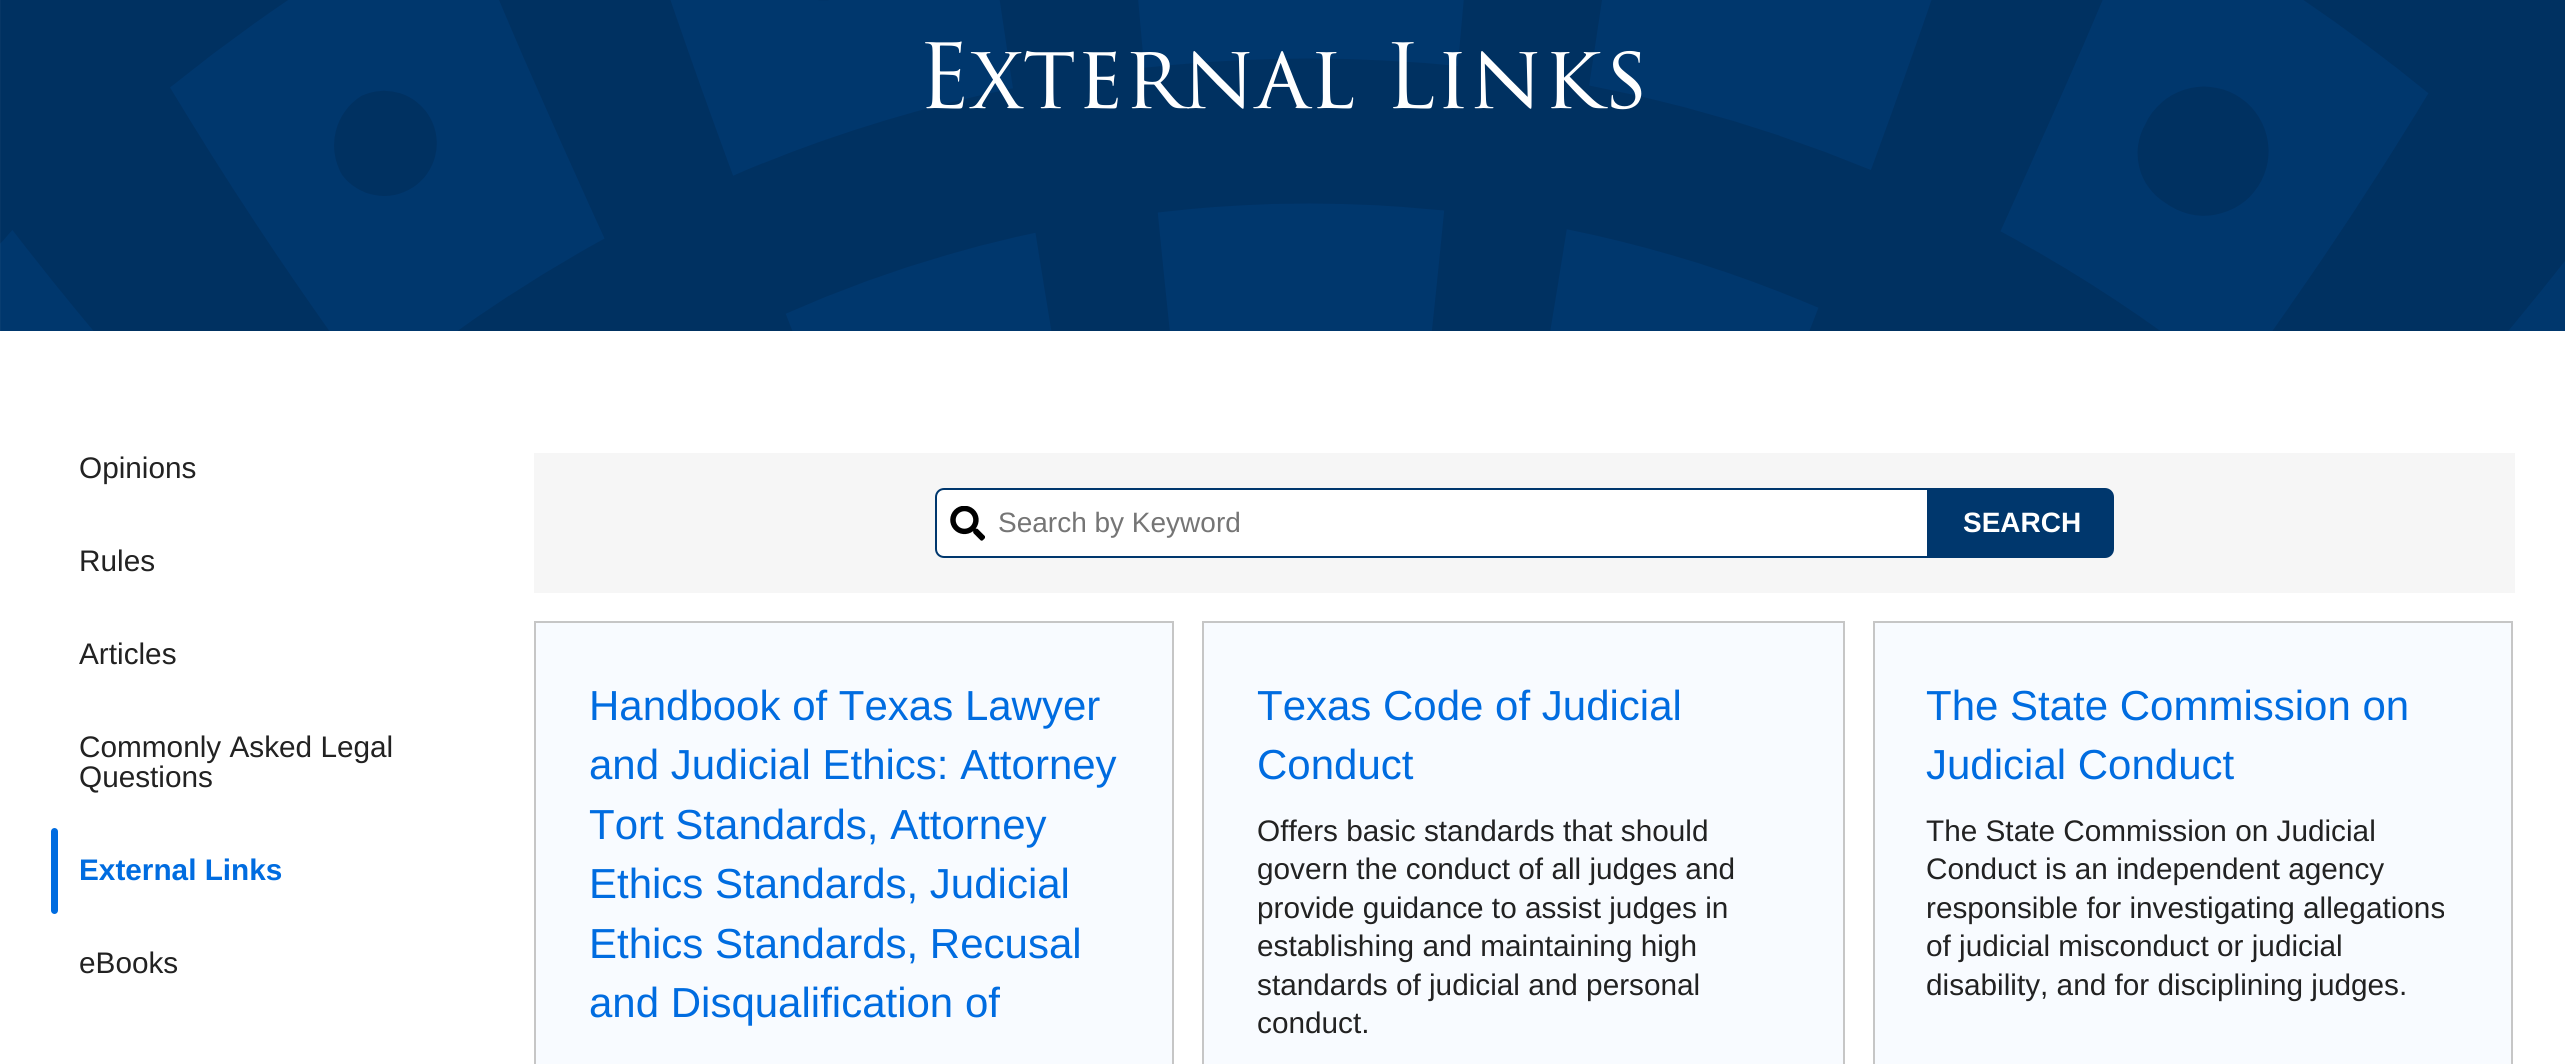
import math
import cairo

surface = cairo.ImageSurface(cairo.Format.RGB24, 2565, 1064)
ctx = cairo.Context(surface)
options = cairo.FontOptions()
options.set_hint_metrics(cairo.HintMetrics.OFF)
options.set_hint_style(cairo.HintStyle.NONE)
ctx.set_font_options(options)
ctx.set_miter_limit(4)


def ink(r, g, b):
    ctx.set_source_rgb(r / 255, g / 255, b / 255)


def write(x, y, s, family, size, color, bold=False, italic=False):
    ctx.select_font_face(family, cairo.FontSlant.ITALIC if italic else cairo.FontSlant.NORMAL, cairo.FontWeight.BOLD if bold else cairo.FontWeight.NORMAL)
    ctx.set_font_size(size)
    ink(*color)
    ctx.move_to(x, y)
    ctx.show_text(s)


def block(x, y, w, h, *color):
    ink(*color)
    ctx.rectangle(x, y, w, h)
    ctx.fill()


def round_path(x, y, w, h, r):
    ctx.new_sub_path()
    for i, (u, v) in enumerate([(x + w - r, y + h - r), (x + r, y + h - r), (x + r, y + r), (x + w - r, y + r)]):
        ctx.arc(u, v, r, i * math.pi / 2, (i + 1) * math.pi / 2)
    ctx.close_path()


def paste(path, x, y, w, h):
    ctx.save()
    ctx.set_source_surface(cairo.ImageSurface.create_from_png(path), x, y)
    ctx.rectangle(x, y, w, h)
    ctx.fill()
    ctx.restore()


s1 = dict(family="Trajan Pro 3", size=87.5, color=(255, 255, 255))
s2 = dict(family="Liberation Sans", size=29.75, color=(34, 34, 34))
s3 = dict(family="Liberation Sans", size=29.75, color=(0, 108, 224), bold=True)
s4 = dict(family="Liberation Sans", size=28, color=(117, 117, 117))
s5 = dict(family="Liberation Sans", size=28, color=(255, 255, 255), bold=True)
s6 = dict(family="Liberation Sans", size=42, color=(0, 108, 224))

ink(255, 255, 255)
ctx.paint()
paste("pic1.png", 0, 0, 2565, 331)
write(917, 108, "External Links", **s1)
write(79, 478, "Opinions", **s2)
write(79, 571, "Rules", **s2)
write(79, 664, "Articles", **s2)
write(79, 757, "Commonly Asked Legal", **s2)
write(79, 787, "Questions", **s2)
ink(0, 108, 224)
round_path(51, 828, 7, 86, 3.5)
ctx.fill()
write(79, 880, "External Links", **s3)
write(79, 973, "eBooks", **s2)
block(534, 453, 1981, 140, 246, 246, 246)
ink(255, 255, 255)
ctx.new_path()
ctx.move_to(944, 488)
ctx.line_to(1929, 488)
ctx.line_to(1929, 558)
ctx.line_to(944, 558)
ctx.curve_to(939, 558, 935, 554, 935, 549)
ctx.line_to(935, 497)
ctx.curve_to(935, 492, 939, 488, 944, 488)
ctx.close_path()
ctx.fill()
paste("pic2.png", 950, 506, 35, 35)
ctx.new_path()
ctx.move_to(944, 489)
ctx.line_to(1928, 489)
ctx.line_to(1928, 557)
ctx.line_to(944, 557)
ctx.curve_to(939.5, 557, 936, 553.5, 936, 549)
ctx.line_to(936, 497)
ctx.curve_to(936, 492.5, 939.5, 489, 944, 489)
ctx.close_path()
ink(0, 55, 109)
ctx.stroke()
write(998, 532, "Search by Keyword", **s4)
ink(0, 55, 109)
ctx.new_path()
ctx.move_to(1929, 488)
ctx.line_to(2105, 488)
ctx.curve_to(2110, 488, 2114, 492, 2114, 497)
ctx.line_to(2114, 549)
ctx.curve_to(2114, 554, 2110, 558, 2105, 558)
ctx.line_to(1929, 558)
ctx.close_path()
ctx.fill()
write(1963, 532, "SEARCH", **s5)
ink(248, 251, 255)
ctx.rectangle(535, 622, 638, 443)
ctx.fill_preserve()
ink(198, 198, 198)
ctx.stroke()
write(589, 720, "Handbook of Texas Lawyer", **s6)
write(589, 779, "and Judicial Ethics: Attorney", **s6)
write(589, 839, "Tort Standards, Attorney", **s6)
write(589, 898, "Ethics Standards, Judicial", **s6)
write(589, 958, "Ethics Standards, Recusal", **s6)
write(589, 1017, "and Disqualification of", **s6)
ink(248, 251, 255)
ctx.rectangle(1203, 622, 641, 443)
ctx.fill_preserve()
ink(198, 198, 198)
ctx.stroke()
write(1257, 720, "Texas Code of Judicial", **s6)
write(1257, 779, "Conduct", **s6)
write(1257, 841, "Offers basic standards that should", **s2)
write(1257, 879, "govern the conduct of all judges and", **s2)
write(1257, 918, "provide guidance to assist judges in", **s2)
write(1257, 956, "establishing and maintaining high", **s2)
write(1257, 995, "standards of judicial and personal", **s2)
write(1257, 1033, "conduct.", **s2)
ink(248, 251, 255)
ctx.rectangle(1874, 622, 638, 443)
ctx.fill_preserve()
ink(198, 198, 198)
ctx.stroke()
write(1926, 720, "The State Commission on", **s6)
write(1926, 779, "Judicial Conduct", **s6)
write(1926, 841, "The State Commission on Judicial", **s2)
write(1926, 879, "Conduct is an independent agency", **s2)
write(1926, 918, "responsible for investigating allegations", **s2)
write(1926, 956, "of judicial misconduct or judicial", **s2)
write(1926, 995, "disability, and for disciplining judges.", **s2)
surface.write_to_png("screenshot.png")
